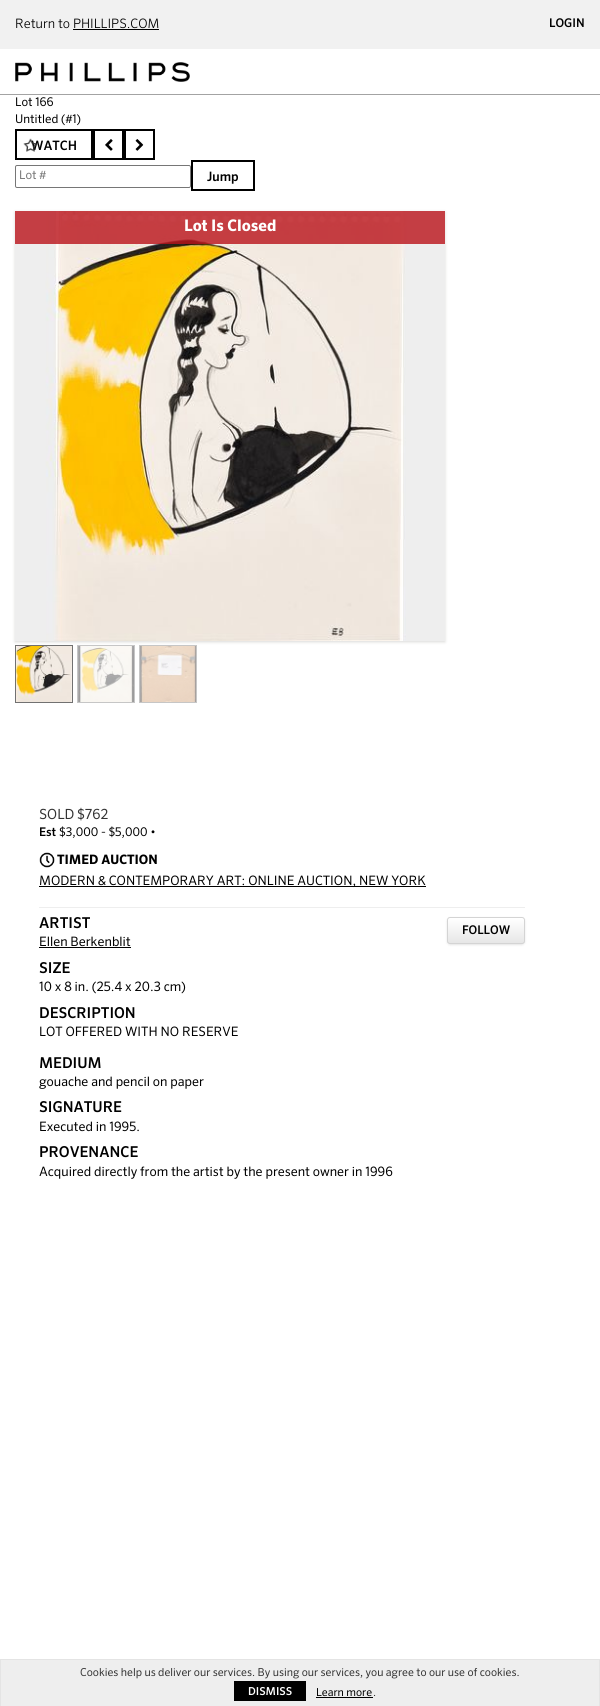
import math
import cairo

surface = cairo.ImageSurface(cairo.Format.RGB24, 600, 1706)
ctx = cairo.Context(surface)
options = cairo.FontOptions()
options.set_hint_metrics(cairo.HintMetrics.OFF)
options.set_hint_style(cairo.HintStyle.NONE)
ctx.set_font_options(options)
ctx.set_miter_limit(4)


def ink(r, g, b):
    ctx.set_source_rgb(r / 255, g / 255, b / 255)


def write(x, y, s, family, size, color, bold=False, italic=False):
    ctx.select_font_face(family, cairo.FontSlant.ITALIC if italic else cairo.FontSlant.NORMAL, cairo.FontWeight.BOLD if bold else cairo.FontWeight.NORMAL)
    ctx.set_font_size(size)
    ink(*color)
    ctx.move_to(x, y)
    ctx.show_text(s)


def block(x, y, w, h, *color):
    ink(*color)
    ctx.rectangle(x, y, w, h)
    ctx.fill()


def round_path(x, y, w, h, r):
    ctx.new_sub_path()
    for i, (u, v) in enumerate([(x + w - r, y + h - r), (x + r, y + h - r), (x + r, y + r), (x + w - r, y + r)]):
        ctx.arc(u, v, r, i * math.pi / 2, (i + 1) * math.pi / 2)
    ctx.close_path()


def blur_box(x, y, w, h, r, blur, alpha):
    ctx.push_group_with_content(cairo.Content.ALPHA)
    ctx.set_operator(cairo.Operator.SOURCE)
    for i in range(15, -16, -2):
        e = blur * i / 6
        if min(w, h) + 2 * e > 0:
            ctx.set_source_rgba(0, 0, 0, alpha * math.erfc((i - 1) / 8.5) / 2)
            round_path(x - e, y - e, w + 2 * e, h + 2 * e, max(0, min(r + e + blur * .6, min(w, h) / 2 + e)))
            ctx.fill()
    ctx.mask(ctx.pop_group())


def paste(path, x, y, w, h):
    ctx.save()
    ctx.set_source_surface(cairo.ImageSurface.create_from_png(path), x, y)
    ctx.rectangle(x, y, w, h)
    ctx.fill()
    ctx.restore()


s1 = dict(family="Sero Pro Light", size=13, color=(0, 0, 0))
s2 = dict(family="Sero Pro Medium", size=12, color=(0, 0, 0))
s3 = dict(family="Sero Pro", size=12, color=(0, 0, 0))
s4 = dict(family="Sero Pro Medium", size=13, color=(0, 0, 0))
s5 = dict(family="Sero Pro", size=12, color=(117, 117, 117))
s6 = dict(family="Sero Pro", size=16, color=(255, 255, 255), bold=True)
s7 = dict(family="Sero Pro", size=14, color=(51, 51, 51))
s8 = dict(family="Sero Pro", size=13, color=(0, 0, 0), bold=True)
s9 = dict(family="Sero Pro", size=13, color=(0, 0, 0))
s10 = dict(family="Sero Pro Medium", size=15, color=(0, 0, 0))
s11 = dict(family="Sero Pro", size=11, color=(51, 51, 51))
s12 = dict(family="Sero Pro Medium", size=11, color=(255, 255, 255))
s13 = dict(family="Sero Pro", size=11, color=(0, 0, 0))

ink(255, 255, 255)
ctx.paint()
block(0, 94, 600, 1, 163, 163, 163)
block(0, 0, 600, 49, 241, 241, 241)
write(15, 28, "Return to PHILLIPS.COM", **s1)
block(73, 29, 86, 1, 0, 0, 0)
write(549, 27, "LOGIN", **s2)
paste("pic1.png", 15, 62, 175, 20)
write(15, 106, "Lot 166", **s3)
write(15, 123, "Untitled (#1)", **s3)
ctx.rectangle(16, 130, 76, 29)
ctx.stroke()
write(31, 150, "WATCH", **s4)
paste("pic2.png", 23, 138, 15, 14)
ctx.rectangle(94, 130, 29, 29)
ctx.stroke()
paste("pic3.png", 105, 139, 8, 12)
ctx.rectangle(125, 130, 29, 29)
ctx.stroke()
paste("pic4.png", 135, 139, 9, 12)
round_path(15.5, 165.5, 175, 22, 1.5)
ink(118, 118, 118)
ctx.set_line_width(1)
ctx.stroke()
write(19, 179, "Lot #", **s5)
ctx.rectangle(192, 161, 62, 29)
ink(0, 0, 0)
ctx.set_line_width(2)
ctx.stroke()
write(207, 181, "Jump", **s4)
ink(218, 217, 215)
blur_box(15, 212, 430, 430, 0, 1.5, 1)
paste("pic5.png", 15, 211, 430, 430)
ctx.set_source_rgba(0.725, 0.071, 0.102, 0.8)
ctx.rectangle(15, 211, 430, 33)
ctx.fill()
write(184, 231, "Lot Is Closed", **s6)
ctx.rectangle(15.5, 645.5, 57, 57)
ink(113, 113, 113)
ctx.set_line_width(1)
ctx.stroke()
ctx.rectangle(77.5, 645.5, 57, 57)
ink(198, 198, 198)
ctx.stroke()
ctx.rectangle(139.5, 645.5, 57, 57)
ctx.stroke()
paste("pic6.png", 16, 646, 56, 56)
paste("pic7.png", 78, 646, 56, 56)
paste("pic8.png", 140, 646, 56, 56)
write(39, 819, "SOLD", **s7)
write(77, 819, "$762", **s7)
write(39, 836, "Est", **s2)
write(59, 836, "$3,000 - $5,000 •", **s3)
paste("pic9.png", 39, 852, 16, 16)
write(57, 864, "TIMED AUCTION", **s8)
block(39, 886, 387, 1, 0, 0, 0)
write(39, 885, "MODERN & CONTEMPORARY ART: ONLINE AUCTION, NEW YORK", **s9)
block(39, 907, 486, 1, 238, 238, 238)
write(39, 928, "ARTIST", **s10)
ink(0, 0, 0)
blur_box(448, 919, 76, 25, 2, 1.5, 0.2)
ctx.save()
round_path(447, 917, 78, 27, 3)
ctx.clip()
gradient = cairo.LinearGradient(486, 918, 486, 943)
gradient.add_color_stop_rgba(0, 1, 1, 1, 1)
gradient.add_color_stop_rgba(1, 0.902, 0.902, 0.902, 1)
ctx.set_source(gradient)
ctx.rectangle(447, 918, 78, 25)
ctx.fill()
ctx.restore()
round_path(447.5, 917.5, 77, 26, 2.5)
ink(212, 212, 212)
ctx.stroke()
write(462, 934, "FOLLOW", **s2)
write(39, 946, "Ellen Berkenblit", **s9)
block(39, 947, 92, 1, 0, 0, 0)
write(39, 973, "SIZE", **s10)
write(39, 991, "10 x 8 in. (25.4 x 20.3 cm)", **s9)
write(39, 1018, "DESCRIPTION", **s10)
write(39, 1036, "LOT OFFERED WITH NO RESERVE", **s9)
write(39, 1068, "MEDIUM", **s10)
write(39, 1086, "gouache and pencil on paper", **s9)
write(39, 1112, "SIGNATURE", **s10)
write(39, 1131, "Executed in 1995.", **s9)
write(39, 1157, "PROVENANCE", **s10)
write(39, 1176, "Acquired directly from the artist by the present owner in 1996", **s9)
block(1, 1660, 598, 46, 238, 238, 238)
block(0, 1659, 600, 1, 228, 228, 228)
block(599, 1659, 1, 47, 228, 228, 228)
block(0, 1659, 1, 47, 228, 228, 228)
write(80, 1676, "Cookies help us deliver our services. By using our services, you agree to our use of cookies.", **s11)
block(234, 1681, 72, 20, 0, 0, 0)
write(248, 1695, "DISMISS", **s12)
write(316, 1696, "Learn more", **s13)
block(316, 1697, 57, 1, 0, 0, 0)
write(373, 1696, ".", **s11)
surface.write_to_png("screenshot.png")
